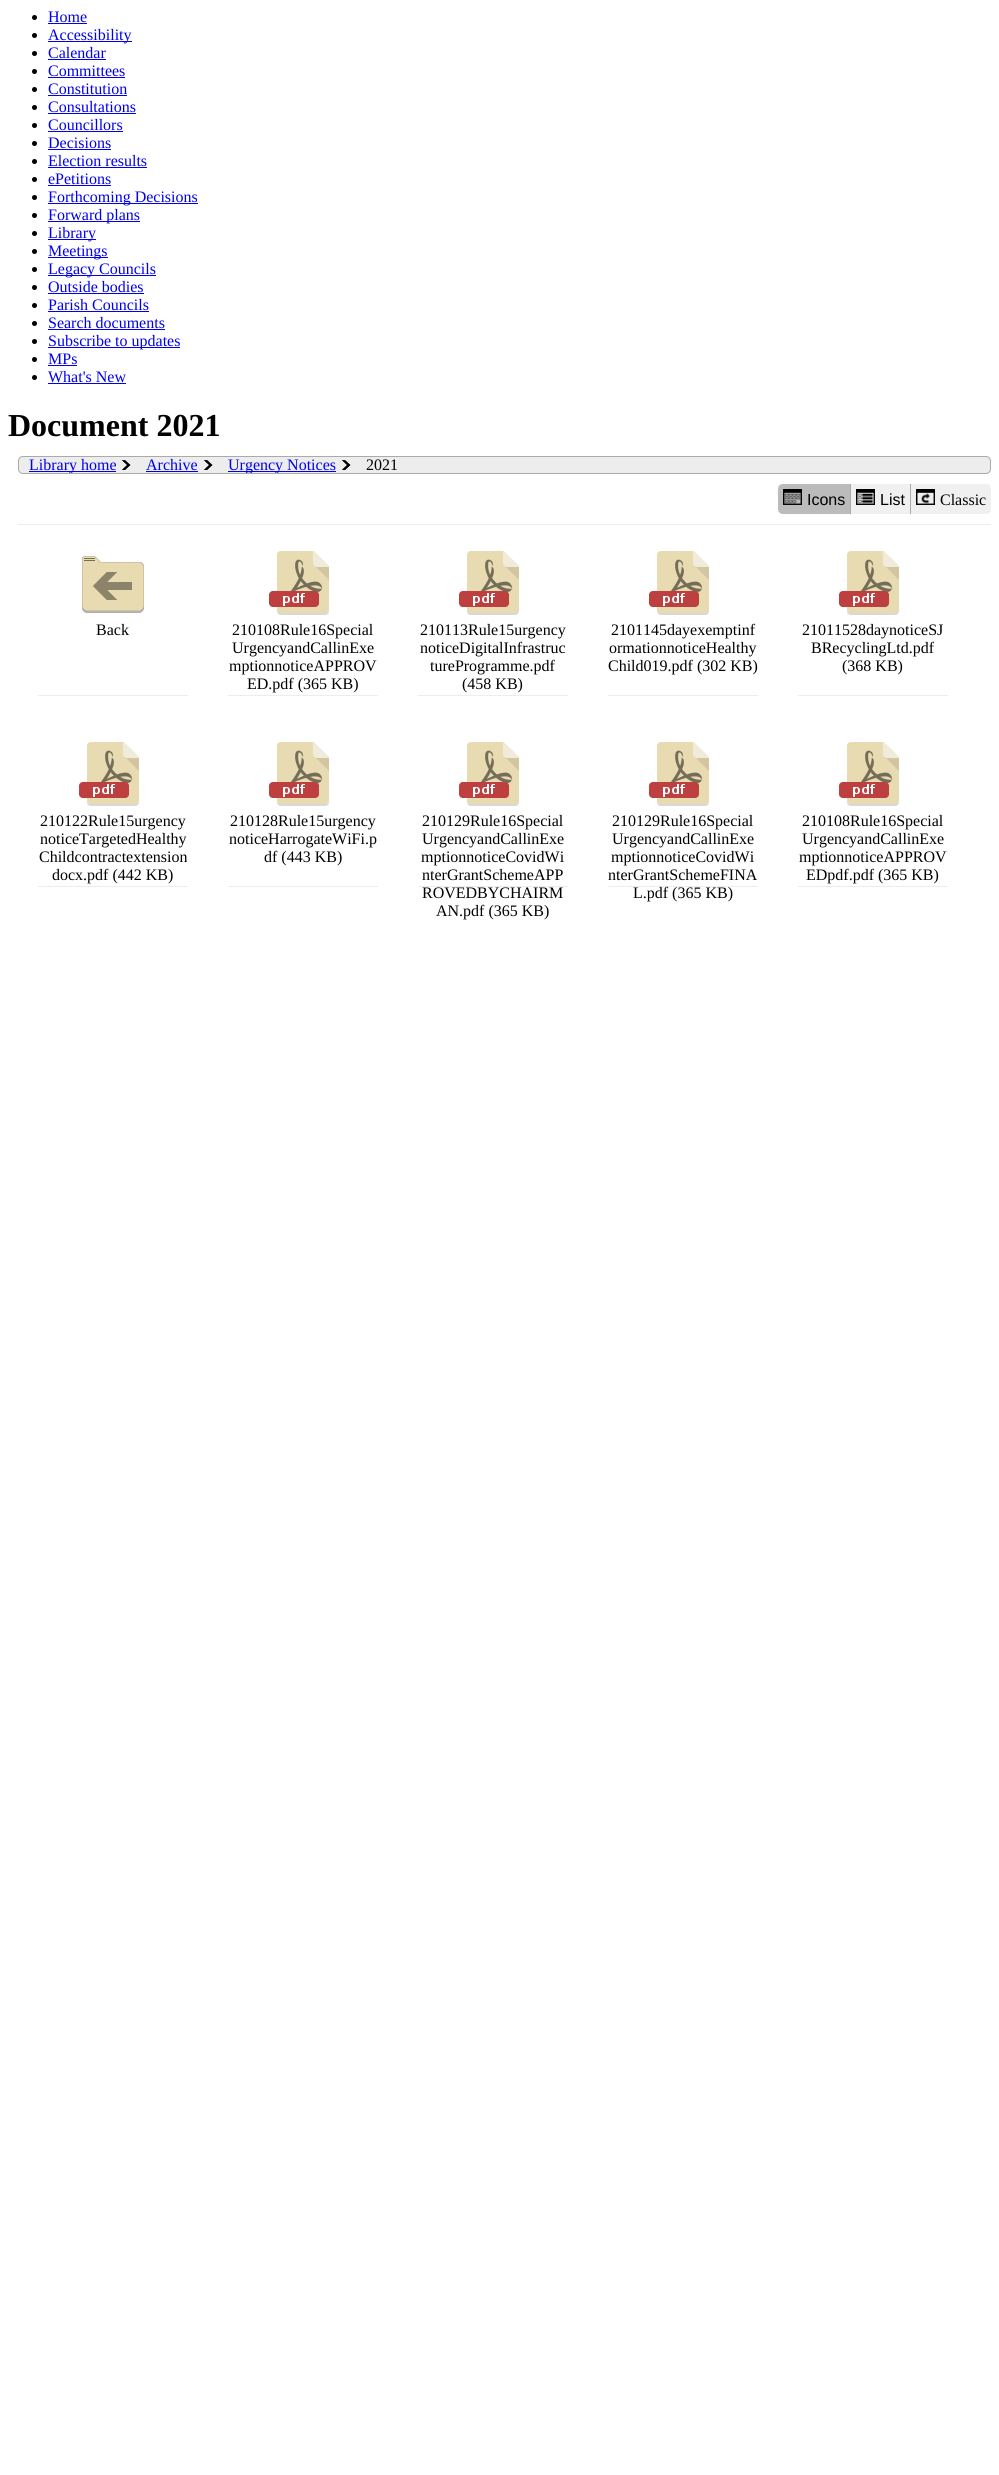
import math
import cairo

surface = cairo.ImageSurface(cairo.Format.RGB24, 999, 2475)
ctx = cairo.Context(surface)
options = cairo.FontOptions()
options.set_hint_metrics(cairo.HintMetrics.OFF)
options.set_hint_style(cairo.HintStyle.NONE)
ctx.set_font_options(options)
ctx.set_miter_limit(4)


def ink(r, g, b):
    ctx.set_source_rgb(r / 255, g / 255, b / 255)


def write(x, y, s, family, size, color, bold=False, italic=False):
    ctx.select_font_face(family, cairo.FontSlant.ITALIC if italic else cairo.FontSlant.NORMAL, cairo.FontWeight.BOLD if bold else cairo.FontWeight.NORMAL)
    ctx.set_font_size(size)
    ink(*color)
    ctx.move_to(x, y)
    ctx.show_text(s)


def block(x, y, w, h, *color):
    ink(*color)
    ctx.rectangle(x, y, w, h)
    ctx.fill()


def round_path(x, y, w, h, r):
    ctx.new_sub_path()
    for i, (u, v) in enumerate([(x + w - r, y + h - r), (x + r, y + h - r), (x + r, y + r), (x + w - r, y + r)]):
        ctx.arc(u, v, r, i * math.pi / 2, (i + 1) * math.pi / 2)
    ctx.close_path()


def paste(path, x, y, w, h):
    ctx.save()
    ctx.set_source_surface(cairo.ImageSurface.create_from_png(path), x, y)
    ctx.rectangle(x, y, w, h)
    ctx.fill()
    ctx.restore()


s1 = dict(family="Liberation Serif", size=16, color=(0, 0, 238))
s2 = dict(family="Liberation Serif", size=32, color=(0, 0, 0), bold=True)
s3 = dict(family="Liberation Serif", size=16, color=(0, 0, 0))
s4 = dict(family="Liberation Sans", size=16, color=(0, 0, 0))

ink(255, 255, 255)
ctx.paint()
ink(0, 0, 0)
ctx.arc(34.5, 17.5, 2.5, 0, 2 * math.pi)
ctx.fill()
write(48, 22, "Home", **s1)
block(48, 23, 39, 1, 0, 0, 238)
ink(0, 0, 0)
ctx.new_path()
ctx.arc(34.5, 35.5, 2.5, 0, 2 * math.pi)
ctx.fill()
block(48, 41, 84, 1, 0, 0, 238)
write(48, 40, "Accessibility", **s1)
ink(0, 0, 0)
ctx.new_path()
ctx.arc(34.5, 53.5, 2.5, 0, 2 * math.pi)
ctx.fill()
write(48, 58, "Calendar", **s1)
block(48, 59, 58, 1, 0, 0, 238)
ink(0, 0, 0)
ctx.new_path()
ctx.arc(34.5, 71.5, 2.5, 0, 2 * math.pi)
ctx.fill()
write(48, 76, "Committees", **s1)
block(48, 77, 77, 1, 0, 0, 238)
ink(0, 0, 0)
ctx.new_path()
ctx.arc(34.5, 89.5, 2.5, 0, 2 * math.pi)
ctx.fill()
write(48, 94, "Constitution", **s1)
block(48, 95, 79, 1, 0, 0, 238)
ink(0, 0, 0)
ctx.new_path()
ctx.arc(34.5, 107.5, 2.5, 0, 2 * math.pi)
ctx.fill()
write(48, 112, "Consultations", **s1)
block(48, 113, 88, 1, 0, 0, 238)
ink(0, 0, 0)
ctx.new_path()
ctx.arc(34.5, 125.5, 2.5, 0, 2 * math.pi)
ctx.fill()
write(48, 130, "Councillors", **s1)
block(48, 131, 75, 1, 0, 0, 238)
ink(0, 0, 0)
ctx.new_path()
ctx.arc(34.5, 143.5, 2.5, 0, 2 * math.pi)
ctx.fill()
write(48, 148, "Decisions", **s1)
block(48, 149, 63, 1, 0, 0, 238)
ink(0, 0, 0)
ctx.new_path()
ctx.arc(34.5, 161.5, 2.5, 0, 2 * math.pi)
ctx.fill()
write(48, 166, "Election results", **s1)
block(48, 167, 99, 1, 0, 0, 238)
ink(0, 0, 0)
ctx.new_path()
ctx.arc(34.5, 179.5, 2.5, 0, 2 * math.pi)
ctx.fill()
write(48, 184, "ePetitions", **s1)
block(48, 185, 63, 1, 0, 0, 238)
ink(0, 0, 0)
ctx.new_path()
ctx.arc(34.5, 197.5, 2.5, 0, 2 * math.pi)
ctx.fill()
block(48, 203, 150, 1, 0, 0, 238)
write(48, 202, "Forthcoming Decisions", **s1)
ink(0, 0, 0)
ctx.new_path()
ctx.arc(34.5, 215.5, 2.5, 0, 2 * math.pi)
ctx.fill()
block(48, 221, 92, 1, 0, 0, 238)
write(48, 220, "Forward plans", **s1)
ink(0, 0, 0)
ctx.new_path()
ctx.arc(34.5, 233.5, 2.5, 0, 2 * math.pi)
ctx.fill()
block(48, 239, 48, 1, 0, 0, 238)
write(48, 238, "Library", **s1)
ink(0, 0, 0)
ctx.new_path()
ctx.arc(34.5, 251.5, 2.5, 0, 2 * math.pi)
ctx.fill()
block(48, 257, 60, 1, 0, 0, 238)
write(48, 256, "Meetings", **s1)
ink(0, 0, 0)
ctx.new_path()
ctx.arc(34.5, 269.5, 2.5, 0, 2 * math.pi)
ctx.fill()
block(48, 275, 108, 1, 0, 0, 238)
write(48, 274, "Legacy Councils", **s1)
ink(0, 0, 0)
ctx.new_path()
ctx.arc(34.5, 287.5, 2.5, 0, 2 * math.pi)
ctx.fill()
write(48, 292, "Outside bodies", **s1)
block(48, 293, 96, 1, 0, 0, 238)
ink(0, 0, 0)
ctx.new_path()
ctx.arc(34.5, 305.5, 2.5, 0, 2 * math.pi)
ctx.fill()
write(48, 310, "Parish Councils", **s1)
block(48, 311, 101, 1, 0, 0, 238)
ink(0, 0, 0)
ctx.new_path()
ctx.arc(34.5, 323.5, 2.5, 0, 2 * math.pi)
ctx.fill()
write(48, 328, "Search documents", **s1)
block(48, 329, 117, 1, 0, 0, 238)
ink(0, 0, 0)
ctx.new_path()
ctx.arc(34.5, 341.5, 2.5, 0, 2 * math.pi)
ctx.fill()
block(48, 347, 132, 1, 0, 0, 238)
write(48, 346, "Subscribe to updates", **s1)
ink(0, 0, 0)
ctx.new_path()
ctx.arc(34.5, 359.5, 2.5, 0, 2 * math.pi)
ctx.fill()
write(48, 364, "MPs", **s1)
block(48, 365, 29, 1, 0, 0, 238)
ink(0, 0, 0)
ctx.new_path()
ctx.arc(34.5, 377.5, 2.5, 0, 2 * math.pi)
ctx.fill()
write(48, 382, "What's New", **s1)
block(48, 383, 78, 1, 0, 0, 238)
write(8, 436, "Document 2021", **s2)
ink(237, 237, 237)
round_path(18.5, 456.5, 972, 17, 4.5)
ctx.fill_preserve()
ink(170, 170, 170)
ctx.set_line_width(1)
ctx.stroke()
block(29, 471, 87, 1, 0, 0, 238)
ctx.save()
round_path(19, 457, 971, 16, 4)
ctx.clip()
write(29, 470, "Library home", **s1)
ctx.restore()
paste("pic1.png", 122, 460, 9, 10)
write(146, 470, "Archive", **s1)
block(146, 471, 52, 1, 0, 0, 238)
paste("pic1.png", 204, 460, 9, 10)
block(228, 471, 108, 1, 0, 0, 238)
ctx.save()
round_path(19, 457, 971, 16, 4)
ctx.clip()
write(228, 470, "Urgency Notices", **s1)
ctx.restore()
paste("pic1.png", 342, 460, 9, 10)
write(366, 470, "2021", **s3)
ink(187, 187, 187)
ctx.new_path()
ctx.move_to(783, 484)
ctx.line_to(851, 484)
ctx.line_to(851, 514)
ctx.line_to(783, 514)
ctx.curve_to(780, 514, 778, 512, 778, 509)
ctx.line_to(778, 489)
ctx.curve_to(778, 486, 780, 484, 783, 484)
ctx.close_path()
ctx.fill()
block(850, 484, 1, 30, 170, 170, 170)
paste("pic2.png", 783, 489, 19, 16)
write(807, 505, "Icons", **s4)
block(851, 484, 59, 30, 240, 240, 240)
paste("pic3.png", 856, 489, 19, 16)
write(880, 505, "List", **s4)
ink(240, 240, 240)
ctx.new_path()
ctx.move_to(910, 484)
ctx.line_to(986, 484)
ctx.curve_to(989, 484, 991, 486, 991, 489)
ctx.line_to(991, 509)
ctx.curve_to(991, 512, 989, 514, 986, 514)
ctx.line_to(910, 514)
ctx.close_path()
ctx.fill()
block(910, 484, 1, 30, 170, 170, 170)
paste("pic4.png", 916, 489, 19, 16)
write(940, 505, "Classic", **s3)
block(18, 524, 973, 1, 237, 237, 237)
block(38, 695, 150, 1, 237, 237, 237)
paste("pic5.png", 82, 556, 62, 57)
write(96, 635, "Back", **s3)
block(228, 695, 150, 1, 237, 237, 237)
paste("pic6.png", 269, 551, 60, 64)
write(232, 635, "210108Rule16Special", **s3)
write(232, 653, "UrgencyandCallinExe", **s3)
write(229, 671, "mptionnoticeAPPROV", **s3)
write(247, 689, "ED.pdf (365 KB)", **s3)
block(418, 695, 150, 1, 237, 237, 237)
paste("pic6.png", 459, 551, 60, 64)
write(420, 635, "210113Rule15urgency", **s3)
write(420, 653, "noticeDigitalInfrastruc", **s3)
write(430, 671, "tureProgramme.pdf", **s3)
write(462, 689, "(458 KB)", **s3)
block(608, 695, 150, 1, 237, 237, 237)
paste("pic6.png", 649, 551, 60, 64)
write(611, 635, "2101145dayexemptinf", **s3)
write(609, 653, "ormationnoticeHealthy", **s3)
write(608, 671, "Child019.pdf (302 KB)", **s3)
block(798, 695, 150, 1, 237, 237, 237)
paste("pic6.png", 839, 551, 60, 64)
write(802, 635, "21011528daynoticeSJ", **s3)
write(811, 653, "BRecyclingLtd.pdf", **s3)
write(842, 671, "(368 KB)", **s3)
block(38, 886, 150, 1, 237, 237, 237)
paste("pic6.png", 79, 742, 60, 64)
write(40, 826, "210122Rule15urgency", **s3)
write(40, 844, "noticeTargetedHealthy", **s3)
write(39, 862, "Childcontractextension", **s3)
write(52, 880, "docx.pdf (442 KB)", **s3)
block(228, 886, 150, 1, 237, 237, 237)
paste("pic6.png", 269, 742, 60, 64)
write(230, 826, "210128Rule15urgency", **s3)
write(229, 844, "noticeHarrogateWiFi.p", **s3)
write(264, 862, "df (443 KB)", **s3)
block(418, 886, 150, 1, 237, 237, 237)
paste("pic6.png", 459, 742, 60, 64)
write(422, 826, "210129Rule16Special", **s3)
write(422, 844, "UrgencyandCallinExe", **s3)
write(421, 862, "mptionnoticeCovidWi", **s3)
write(422, 880, "nterGrantSchemeAPP", **s3)
write(422, 898, "ROVEDBYCHAIRM", **s3)
write(436, 916, "AN.pdf (365 KB)", **s3)
block(608, 886, 150, 1, 237, 237, 237)
paste("pic6.png", 649, 742, 60, 64)
write(612, 826, "210129Rule16Special", **s3)
write(612, 844, "UrgencyandCallinExe", **s3)
write(611, 862, "mptionnoticeCovidWi", **s3)
write(608, 880, "nterGrantSchemeFINA", **s3)
write(633, 898, "L.pdf (365 KB)", **s3)
block(798, 886, 150, 1, 237, 237, 237)
paste("pic6.png", 839, 742, 60, 64)
write(802, 826, "210108Rule16Special", **s3)
write(802, 844, "UrgencyandCallinExe", **s3)
write(799, 862, "mptionnoticeAPPROV", **s3)
write(806, 880, "EDpdf.pdf (365 KB)", **s3)
surface.write_to_png("screenshot.png")
